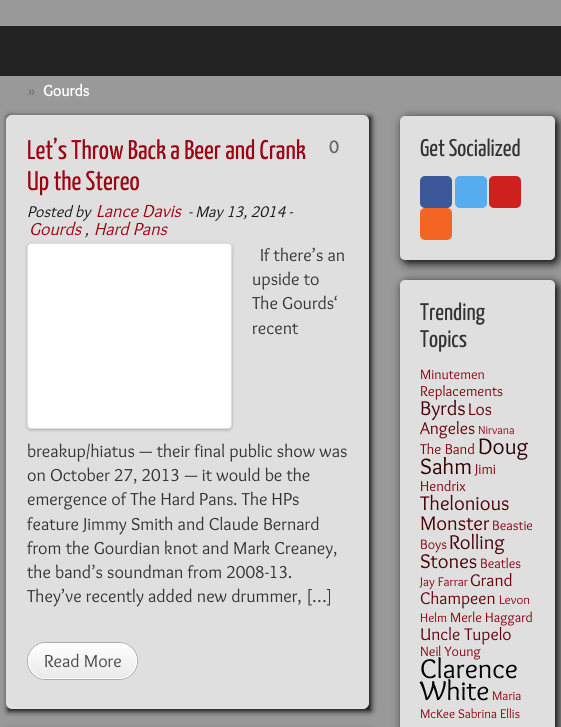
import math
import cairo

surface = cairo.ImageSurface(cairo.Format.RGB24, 561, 727)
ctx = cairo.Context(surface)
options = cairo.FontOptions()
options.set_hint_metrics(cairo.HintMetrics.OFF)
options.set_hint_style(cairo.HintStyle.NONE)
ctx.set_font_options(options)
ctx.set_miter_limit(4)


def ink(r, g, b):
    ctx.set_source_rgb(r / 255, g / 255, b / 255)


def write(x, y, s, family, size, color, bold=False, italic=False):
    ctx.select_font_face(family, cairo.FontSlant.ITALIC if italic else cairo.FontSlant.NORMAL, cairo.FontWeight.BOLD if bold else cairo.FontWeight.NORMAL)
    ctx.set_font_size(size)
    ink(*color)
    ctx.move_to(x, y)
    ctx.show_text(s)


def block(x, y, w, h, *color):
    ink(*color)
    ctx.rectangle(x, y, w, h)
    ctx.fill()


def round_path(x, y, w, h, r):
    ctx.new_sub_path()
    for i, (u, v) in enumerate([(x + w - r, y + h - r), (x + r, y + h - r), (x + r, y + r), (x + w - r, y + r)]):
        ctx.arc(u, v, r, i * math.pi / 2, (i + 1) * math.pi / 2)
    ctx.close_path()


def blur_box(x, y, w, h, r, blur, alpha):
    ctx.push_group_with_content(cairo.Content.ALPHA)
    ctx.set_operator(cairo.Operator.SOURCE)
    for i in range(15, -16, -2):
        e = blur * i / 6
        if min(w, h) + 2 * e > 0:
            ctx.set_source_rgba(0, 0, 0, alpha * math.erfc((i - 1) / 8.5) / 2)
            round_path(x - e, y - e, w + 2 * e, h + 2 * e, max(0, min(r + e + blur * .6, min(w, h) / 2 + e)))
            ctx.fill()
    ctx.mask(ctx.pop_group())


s1 = dict(family="Overlock", size=16, color=(102, 102, 102))
s2 = dict(family="Overlock", size=16, color=(255, 255, 255), bold=True)
s3 = dict(family="Yanone Kaffeesatz ExtraLight", size=27, color=(156, 1, 16))
s4 = dict(family="Overlock", size=18, color=(102, 102, 102), bold=True)
s5 = dict(family="Overlock", size=16, color=(18, 18, 18), italic=True)
s6 = dict(family="Overlock", size=18, color=(156, 1, 16), italic=True)
s7 = dict(family="Overlock", size=18, color=(51, 51, 51))
s8 = dict(family="Overlock", size=18, color=(71, 71, 71))
s9 = dict(family="Yanone Kaffeesatz ExtraLight", size=24, color=(51, 51, 51))
s10 = dict(family="Overlock", size=14, color=(137, 0, 14))
s11 = dict(family="Overlock", size=14.75, color=(128, 0, 13))
s12 = dict(family="Overlock", size=20.5, color=(73, 0, 7))
s13 = dict(family="Overlock", size=17.5, color=(100, 0, 10))
s14 = dict(family="Overlock", size=12, color=(156, 1, 16))
s15 = dict(family="Overlock", size=23, color=(45, 0, 4))
s16 = dict(family="Overlock", size=13, color=(146, 0, 15))
s17 = dict(family="Overlock", size=28, color=(0, 0, 0))

ink(153, 153, 153)
ctx.paint()
block(0, 26, 561, 50, 35, 35, 35)
write(28, 96, "»", **s1)
write(43, 96, "Gourds", **s2)
ink(0, 0, 0)
blur_box(8, 117, 363, 594, 0, 3, 1)
ink(223, 223, 223)
round_path(6.5, 115.5, 362, 593, 5.5)
ctx.fill_preserve()
ink(227, 227, 227)
ctx.set_line_width(1)
ctx.stroke()
write(27, 159, "Let’s Throw Back a Beer and Crank", **s3)
write(27, 190, "Up the Stereo", **s3)
write(329, 153, "0", **s4)
write(27, 217, "Posted by", **s5)
write(96, 217, "Lance Davis", **s6)
write(188, 217, "- May 13, 2014 -", **s5)
write(29, 235, "Gourds", **s6)
write(85, 235, ",", **s5)
write(94, 235, "Hard Pans", **s6)
ink(170, 170, 170)
blur_box(27, 244, 205, 186, 4, 1.5, 1)
ink(255, 255, 255)
round_path(27.5, 243.5, 204, 185, 3.5)
ctx.fill_preserve()
ink(221, 221, 221)
ctx.stroke()
write(260, 261, "If there’s an", **s7)
write(252, 285, "upside to", **s7)
write(252, 309, "The Gourds‘", **s7)
write(252, 334, "recent", **s7)
write(27, 457, "breakup/hiatus — their final public show was", **s7)
write(27, 481, "on October 27, 2013 — it would be the", **s7)
write(27, 505, "emergence of The Hard Pans. The HPs", **s7)
write(27, 530, "feature Jimmy Smith and Claude Bernard", **s7)
write(27, 554, "from the Gourdian knot and Mark Creaney,", **s7)
write(27, 578, "the band’s soundman from 2008-13.", **s7)
write(27, 602, "They’ve recently added new drummer, […]", **s7)
ctx.save()
round_path(27, 642, 111, 38, 19)
ctx.clip()
gradient = cairo.LinearGradient(28, 679, 28, 643)
gradient.add_color_stop_rgba(0, 0.914, 0.914, 0.914, 1)
gradient.add_color_stop_rgba(1, 1, 1, 1, 1)
ctx.set_source(gradient)
ctx.rectangle(27, 643, 111, 36)
ctx.fill()
ctx.restore()
round_path(27.5, 642.5, 110, 37, 18.5)
ink(171, 171, 171)
ctx.stroke()
round_path(28.5, 643.5, 108, 35, 17.5)
ink(255, 255, 255)
ctx.stroke()
write(44, 667, "Read More", **s8)
ink(0, 0, 0)
blur_box(8, 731, 363, 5, 0, 3, 1)
blur_box(403, 119, 155, 144, 5, 5, 1)
ink(223, 223, 223)
round_path(400, 116, 155, 144, 5)
ctx.fill()
write(420, 156, "Get Socialized", **s9)
ink(59, 89, 152)
round_path(420, 176, 32, 32, 5)
ctx.fill()
ink(85, 172, 238)
round_path(455, 176, 32, 32, 5)
ctx.fill()
ink(205, 32, 31)
round_path(489, 176, 32, 32, 5)
ctx.fill()
ink(242, 101, 34)
round_path(420, 208, 32, 32, 5)
ctx.fill()
ink(0, 0, 0)
blur_box(403, 283, 155, 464, 5, 5, 1)
ink(223, 223, 223)
round_path(400, 280, 155, 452, 5)
ctx.fill()
write(420, 320, "Trending", **s9)
write(420, 347, "Topics", **s9)
write(420, 379, "Minutemen", **s10)
write(420, 396, "Replacements", **s11)
write(420, 415, "Byrds", **s12)
write(468, 415, "Los", **s13)
write(420, 434, "Angeles", **s13)
write(478, 434, "Nirvana", **s14)
write(420, 454, "The Band", **s11)
write(478, 454, "Doug", **s15)
write(420, 474, "Sahm", **s15)
write(475, 474, "Jimi", **s11)
write(420, 491, "Hendrix", **s11)
write(420, 510, "Thelonious", **s12)
write(420, 530, "Monster", **s12)
write(492, 530, "Beastie", **s10)
write(420, 549, "Boys", **s10)
write(449, 549, "Rolling", **s12)
write(420, 568, "Stones", **s12)
write(480, 568, "Beatles", **s10)
write(420, 586, "Jay Farrar", **s16)
write(470, 586, "Grand", **s13)
write(420, 604, "Champeen", **s13)
write(499, 604, "Levon", **s16)
write(420, 622, "Helm", **s16)
write(450, 622, "Merle Haggard", **s10)
write(420, 640, "Uncle Tupelo", **s13)
write(420, 656, "Neil Young", **s10)
write(420, 678, "Clarence", **s17)
write(420, 700, "White", **s17)
write(492, 700, "Maria", **s16)
write(420, 718, "McKee", **s16)
write(458, 718, "Sabrina Ellis", **s16)
surface.write_to_png("screenshot.png")
